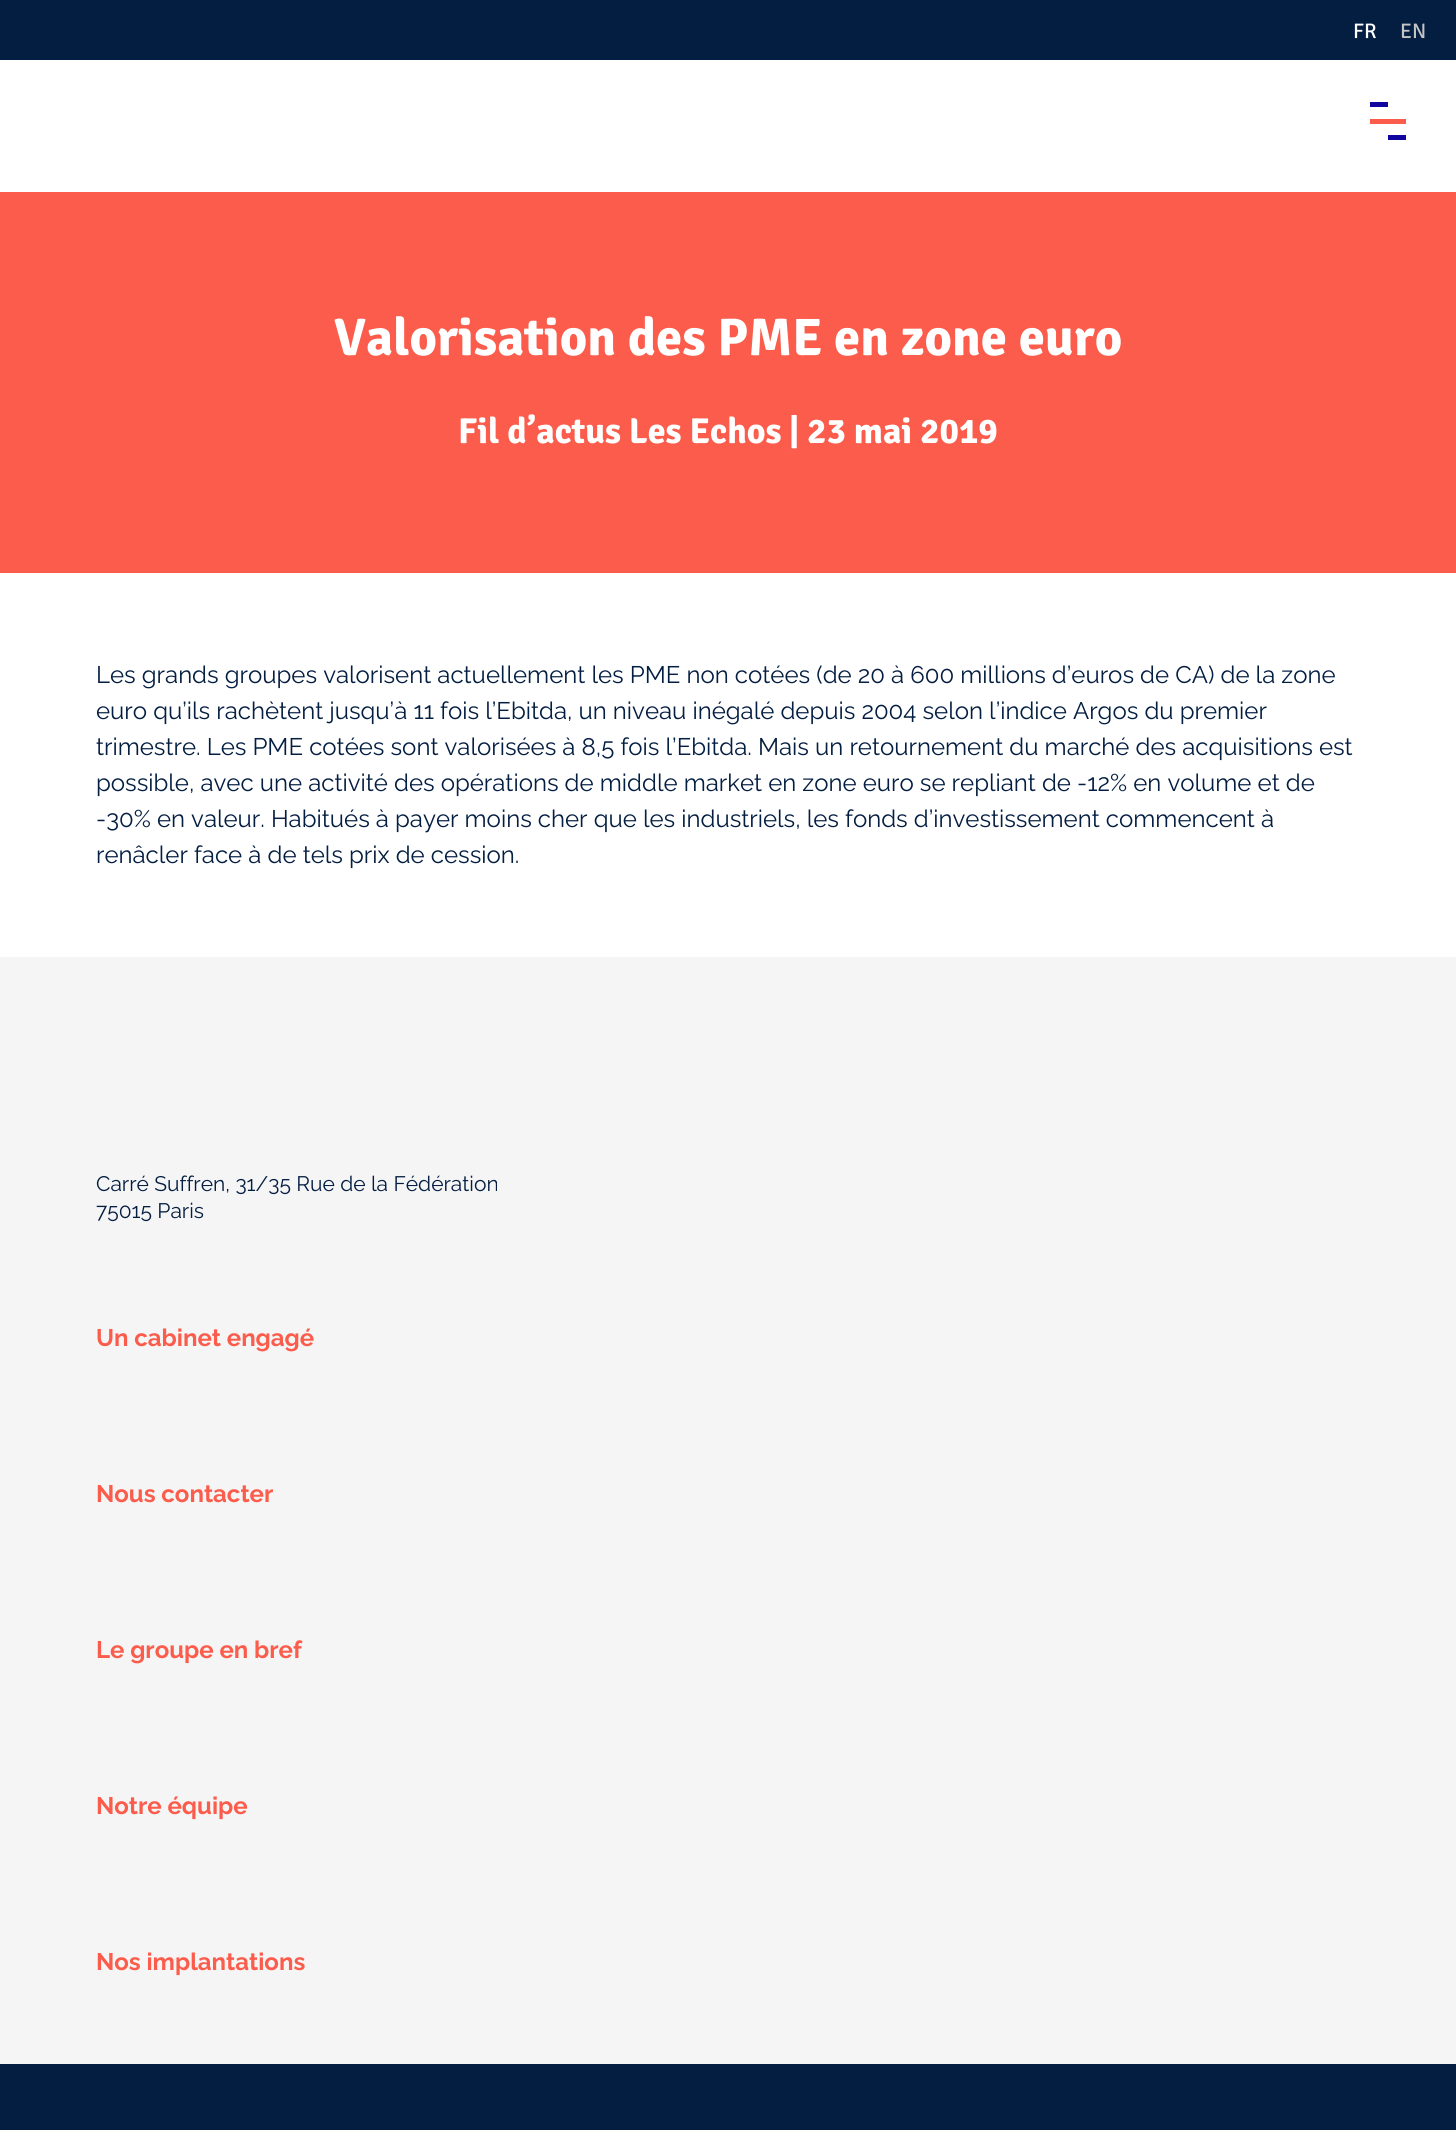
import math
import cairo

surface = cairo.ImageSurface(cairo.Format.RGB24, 1456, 2130)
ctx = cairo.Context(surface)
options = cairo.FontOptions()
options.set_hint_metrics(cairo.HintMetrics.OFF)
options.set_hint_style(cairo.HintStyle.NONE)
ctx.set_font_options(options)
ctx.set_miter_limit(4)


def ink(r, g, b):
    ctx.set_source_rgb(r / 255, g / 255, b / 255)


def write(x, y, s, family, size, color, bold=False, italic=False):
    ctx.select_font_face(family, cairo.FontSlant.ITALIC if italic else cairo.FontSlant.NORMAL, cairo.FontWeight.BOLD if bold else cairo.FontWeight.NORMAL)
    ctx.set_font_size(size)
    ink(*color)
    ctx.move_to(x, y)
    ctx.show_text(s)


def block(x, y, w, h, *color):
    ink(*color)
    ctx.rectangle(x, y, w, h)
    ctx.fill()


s1 = dict(family="Signika", size=21, color=(255, 255, 255))
s2 = dict(family="Signika", size=21, color=(196, 196, 196))
s3 = dict(family="Signika", size=52.75, color=(255, 255, 255), bold=True)
s4 = dict(family="Signika", size=36, color=(255, 255, 255), bold=True)
s5 = dict(family="Raleway", size=24, color=(4, 30, 66))
s6 = dict(family="Raleway", size=21, color=(4, 30, 66))
s7 = dict(family="Raleway", size=24, color=(251, 92, 75), bold=True)

ink(255, 255, 255)
ctx.paint()
block(0, 0, 1456, 60, 4, 30, 66)
write(1353, 38, "FR", **s1)
write(1400, 38, "EN", **s2)
block(1370, 102, 18, 5, 16, 6, 159)
block(1370, 119, 36, 5, 251, 92, 75)
block(1388, 135, 18, 5, 16, 6, 159)
block(0, 192, 1456, 381, 251, 92, 75)
write(334, 355, "Valorisation des PME en zone euro", **s3)
write(458, 443, "Fil d’actus Les Echos | 23 mai 2019", **s4)
write(96, 683, "Les grands groupes valorisent actuellement les PME non cotées (de 20 à 600 millions d’euros de CA) de la zone", **s5)
write(96, 719, "euro qu’ils rachètent jusqu’à 11 fois l’Ebitda, un niveau inégalé depuis 2004 selon l’indice Argos du premier", **s5)
write(96, 755, "trimestre. Les PME cotées sont valorisées à 8,5 fois l’Ebitda. Mais un retournement du marché des acquisitions est", **s5)
write(96, 791, "possible, avec une activité des opérations de middle market en zone euro se repliant de -12% en volume et de", **s5)
write(96, 827, "-30% en valeur. Habitués à payer moins cher que les industriels, les fonds d’investissement commencent à", **s5)
write(96, 863, "renâcler face à de tels prix de cession.", **s5)
block(0, 957, 1456, 1107, 245, 245, 245)
write(96, 1191, "Carré Suffren, 31/35 Rue de la Fédération", **s6)
write(96, 1218, "75015 Paris", **s6)
write(96, 1346, "Un cabinet engagé", **s7)
write(96, 1502, "Nous contacter", **s7)
write(96, 1658, "Le groupe en bref", **s7)
write(96, 1814, "Notre équipe", **s7)
write(96, 1970, "Nos implantations", **s7)
block(0, 2064, 1456, 66, 4, 30, 66)
surface.write_to_png("screenshot.png")
